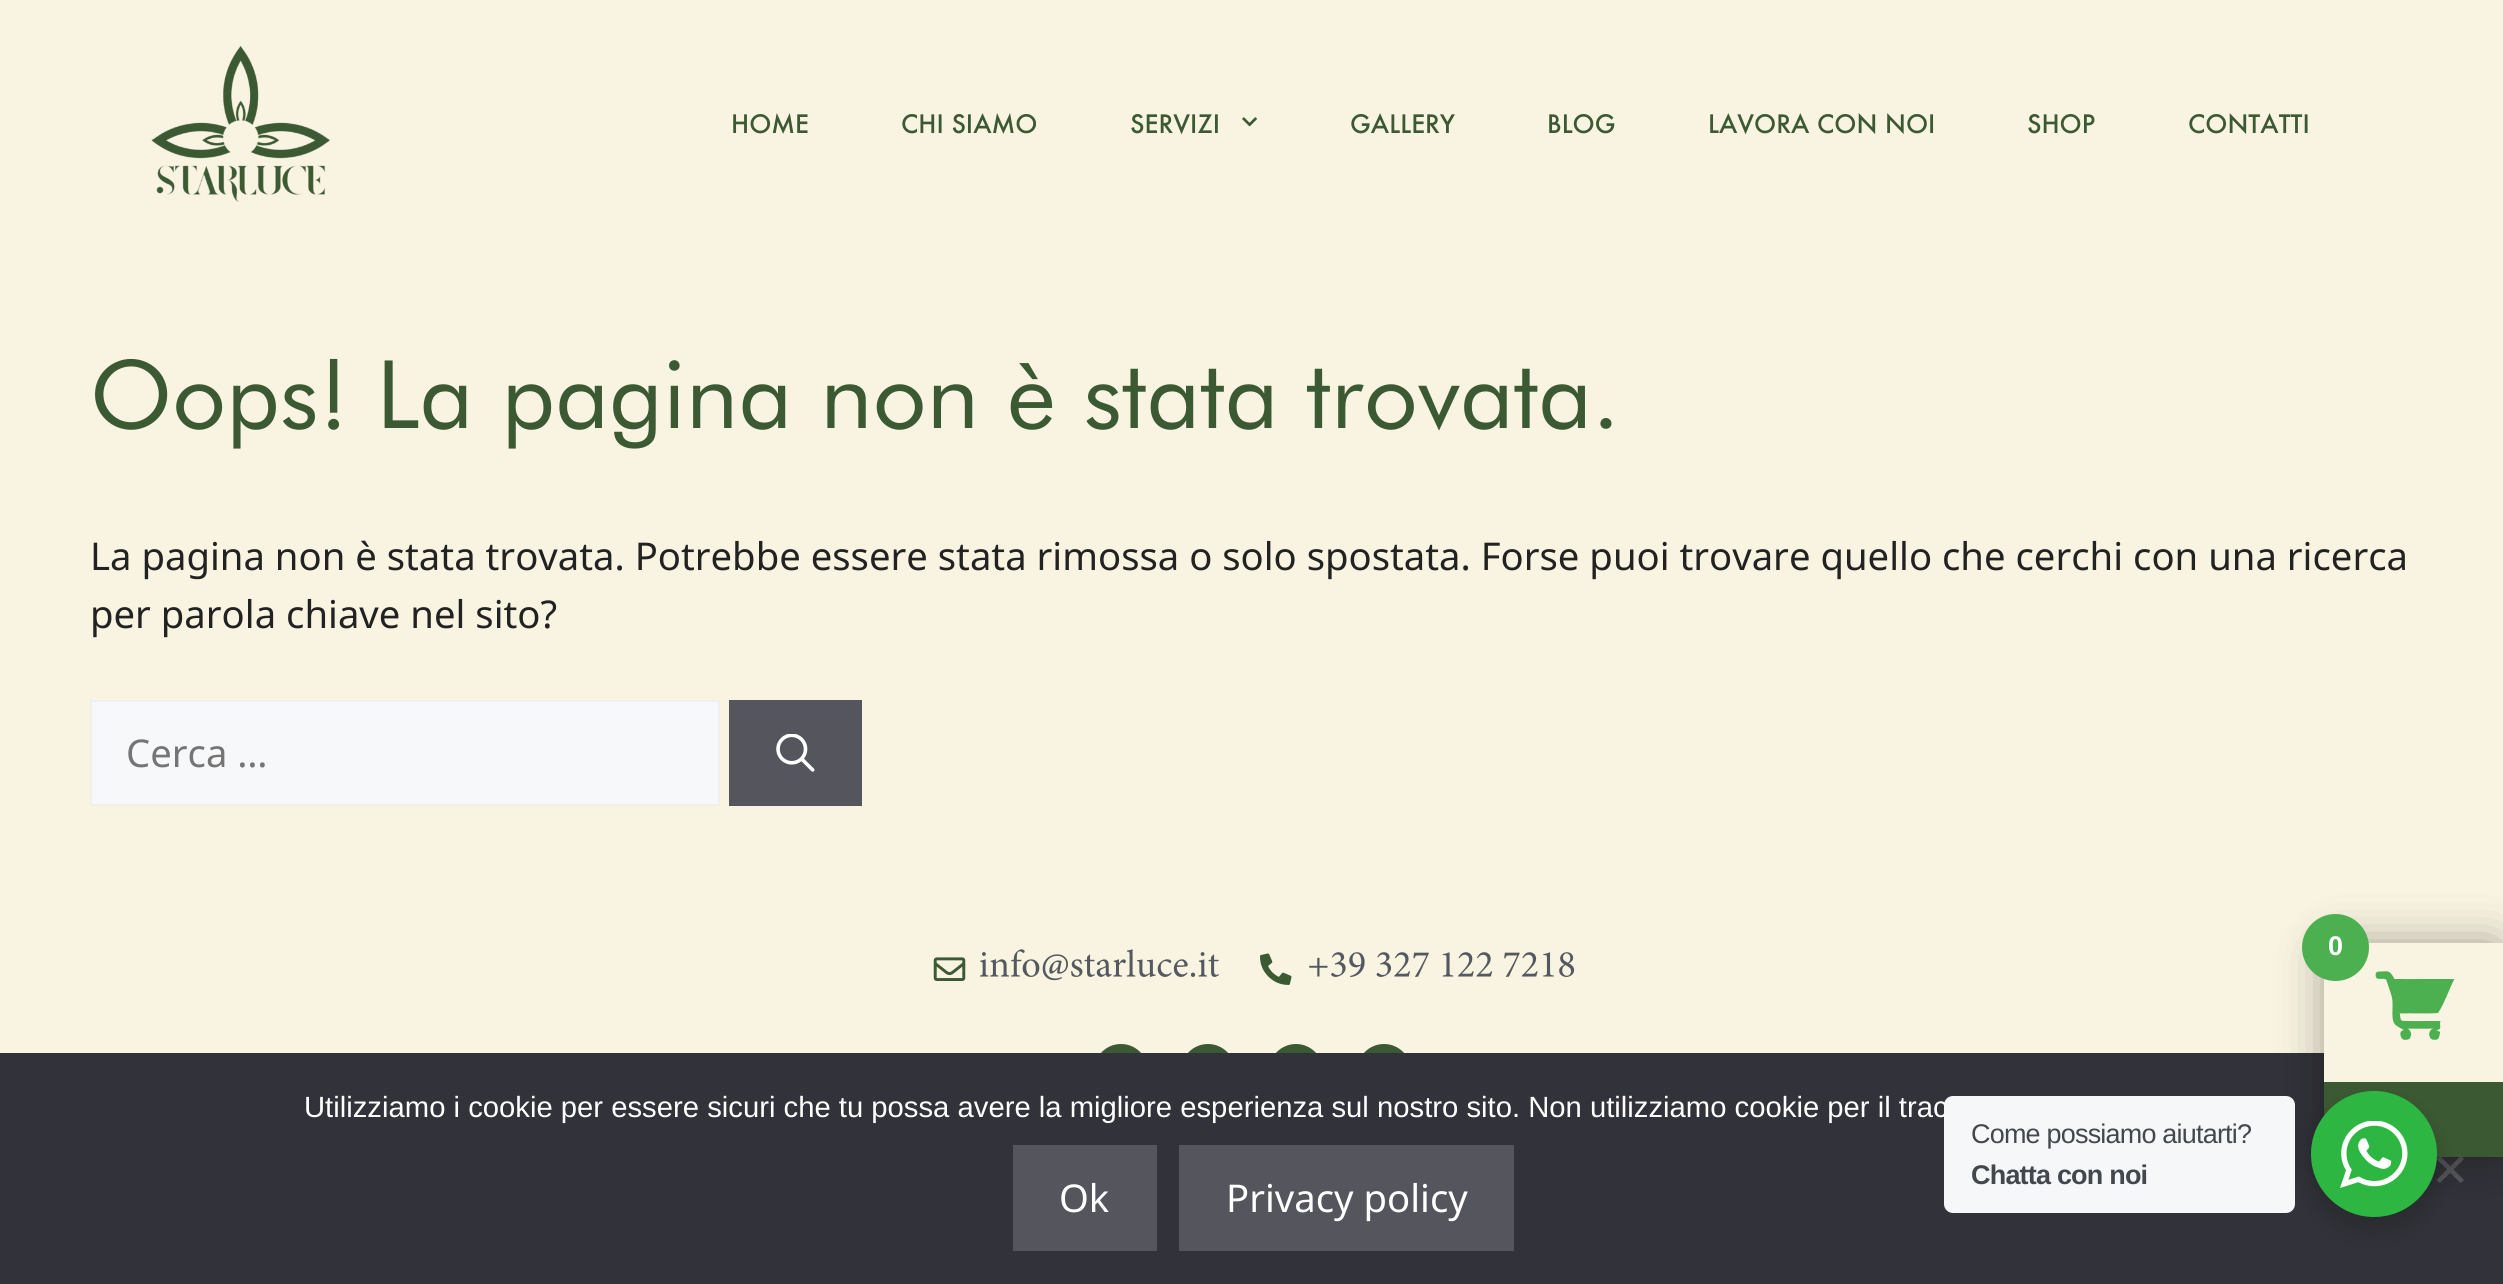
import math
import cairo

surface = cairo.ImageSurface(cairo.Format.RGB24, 2503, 1284)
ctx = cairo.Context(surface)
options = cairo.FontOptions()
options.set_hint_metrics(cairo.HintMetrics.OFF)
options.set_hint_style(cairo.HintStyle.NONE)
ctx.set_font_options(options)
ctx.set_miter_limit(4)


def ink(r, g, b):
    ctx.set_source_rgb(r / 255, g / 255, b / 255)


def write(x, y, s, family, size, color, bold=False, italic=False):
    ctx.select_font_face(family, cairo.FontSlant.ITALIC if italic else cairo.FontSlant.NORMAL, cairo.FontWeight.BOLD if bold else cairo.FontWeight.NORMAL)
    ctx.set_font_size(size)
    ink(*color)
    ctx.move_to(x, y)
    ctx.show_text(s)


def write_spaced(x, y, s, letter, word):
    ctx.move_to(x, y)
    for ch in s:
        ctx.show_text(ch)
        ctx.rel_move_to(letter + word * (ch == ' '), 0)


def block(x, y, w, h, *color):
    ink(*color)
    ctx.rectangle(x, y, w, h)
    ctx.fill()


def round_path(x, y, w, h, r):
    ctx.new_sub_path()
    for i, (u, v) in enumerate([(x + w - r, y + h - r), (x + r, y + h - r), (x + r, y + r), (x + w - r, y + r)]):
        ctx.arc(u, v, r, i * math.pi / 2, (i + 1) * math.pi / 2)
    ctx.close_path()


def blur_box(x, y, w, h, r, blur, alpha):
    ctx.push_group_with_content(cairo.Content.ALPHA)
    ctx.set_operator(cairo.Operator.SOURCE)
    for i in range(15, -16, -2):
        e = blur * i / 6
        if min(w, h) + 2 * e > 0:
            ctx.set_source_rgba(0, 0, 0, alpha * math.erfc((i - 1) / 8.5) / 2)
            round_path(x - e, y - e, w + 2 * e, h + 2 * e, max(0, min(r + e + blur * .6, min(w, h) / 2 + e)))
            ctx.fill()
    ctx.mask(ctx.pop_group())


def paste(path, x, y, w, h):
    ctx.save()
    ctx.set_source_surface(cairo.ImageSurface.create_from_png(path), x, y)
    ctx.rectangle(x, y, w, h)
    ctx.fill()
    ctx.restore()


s1 = dict(family="Futura Medium", size=24.75, color=(59, 89, 51))
s2 = dict(family="Futura", size=94.5, color=(59, 89, 51))
s3 = dict(family="Noto Sans", size=38.25, color=(34, 34, 34))
s4 = dict(family="Noto Sans", size=38.25, color=(117, 117, 117))
s5 = dict(family="Liberation Sans", size=27, color=(255, 255, 255), bold=True)
s6 = dict(family="Liberation Sans", size=29.25, color=(255, 255, 255))
s7 = dict(family="Noto Sans", size=38.25, color=(255, 255, 255))

ink(249, 244, 225)
ctx.paint()
paste("pic1.png", 151, 46, 179, 156)
write(731, 133, "HOME", **s1)
write(901, 133, "CHI SIAMO", **s1)
write(1130, 133, "SERVIZI", **s1)
paste("pic2.png", 1242, 117, 15, 10)
write(1350, 133, "GALLERY", **s1)
write(1547, 133, "BLOG", **s1)
write(1708, 133, "LAVORA CON NOI", **s1)
write(2027, 133, "SHOP", **s1)
write(2188, 133, "CONTATTI", **s1)
write(90, 428, "Oops! La pagina non è stata trovata.", **s2)
write(90, 570, "La pagina non è stata trovata. Potrebbe essere stata rimossa o solo spostata. Forse puoi trovare quello che cerchi con una ricerca", **s3)
write(90, 628, "per parola chiave nel sito?", **s3)
ink(247, 248, 249)
ctx.rectangle(91, 701, 628, 104)
ctx.fill_preserve()
ink(240, 240, 240)
ctx.stroke()
write(126, 767, "Cerca …", **s4)
block(729, 700, 133, 106, 85, 85, 94)
paste("pic3.png", 776, 734, 39, 38)
ink(59, 89, 51)
ctx.arc(1121, 1071, 27, 0, 2 * math.pi)
ctx.fill()
ctx.arc(1208, 1071, 27, 0, 2 * math.pi)
ctx.fill()
ctx.arc(1296, 1071, 27, 0, 2 * math.pi)
ctx.fill()
ctx.arc(1384, 1071, 27, 0, 2 * math.pi)
ctx.fill()
block(0, 1053, 2503, 231, 50, 50, 58)
ink(89, 89, 93)
ctx.new_path()
ctx.move_to(2460.5, 1156)
ctx.line_to(2464, 1159)
ctx.line_to(2440, 1183)
ctx.line_to(2436.5, 1180)
ctx.close_path()
ctx.fill()
ctx.new_path()
ctx.move_to(2436.5, 1159)
ctx.line_to(2440, 1156)
ctx.line_to(2464, 1180)
ctx.line_to(2460.5, 1183)
ctx.close_path()
ctx.fill()
ink(0, 0, 0)
blur_box(2324, 943, 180, 214, 11, 22.5, 0.35)
block(2324, 1082, 179, 75, 59, 89, 51)
block(2324, 943, 179, 139, 249, 244, 225)
ink(76, 175, 80)
ctx.arc(2335.5, 947.5, 33.5, 0, 2 * math.pi)
ctx.fill()
write(2328, 955, "0", **s5)
paste("pic4.png", 2375, 971, 80, 69)
paste("pic5.png", 933, 957, 33, 24)
paste("pic6.png", 980, 949, 239, 32)
paste("pic7.png", 1260, 953, 32, 32)
paste("pic8.png", 1309, 952, 266, 25)
write(304, 1117, "Utilizziamo i cookie per essere sicuri che tu possa avere la migliore esperienza sul nostro sito. Non utilizziamo cookie per il trac", **s6)
block(1013, 1145, 144, 106, 85, 85, 94)
write(1059, 1212, "Ok", **s7)
block(1179, 1145, 335, 106, 85, 85, 94)
write(1226, 1212, "Privacy policy", **s7)
ink(0, 0, 0)
blur_box(2306, 1100, 135, 135, 67.5, 9, 0.14)
ink(245, 247, 249)
round_path(1944, 1096, 351, 117, 9)
ctx.fill()
ctx.select_font_face("Liberation Sans")
ctx.set_font_size(27)
ink(67, 71, 78)
write_spaced(1971, 1143, "Come possiamo aiutarti?", -0.8, 0)
ctx.select_font_face("Liberation Sans", cairo.FontSlant.NORMAL, cairo.FontWeight.BOLD)
write_spaced(1971, 1184, "Chatta con noi", -0.8, 0)
ink(45, 183, 66)
ctx.new_path()
ctx.arc(2374, 1154, 63, 0, 2 * math.pi)
ctx.fill()
paste("pic9.png", 2340, 1121, 68, 67)
surface.write_to_png("screenshot.png")
